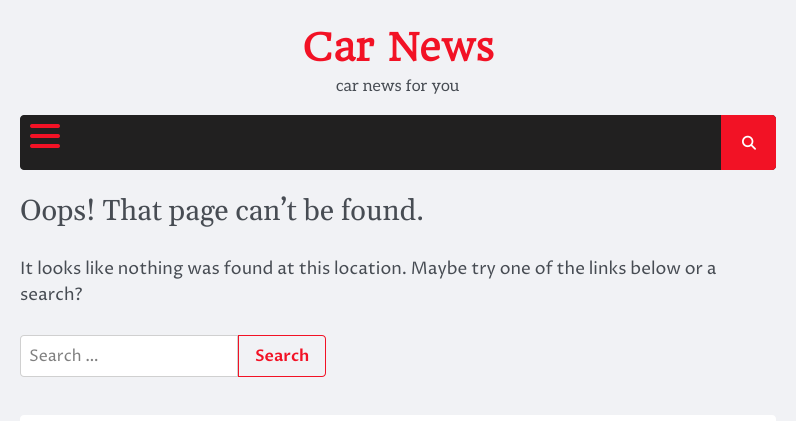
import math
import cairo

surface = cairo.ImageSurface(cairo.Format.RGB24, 796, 421)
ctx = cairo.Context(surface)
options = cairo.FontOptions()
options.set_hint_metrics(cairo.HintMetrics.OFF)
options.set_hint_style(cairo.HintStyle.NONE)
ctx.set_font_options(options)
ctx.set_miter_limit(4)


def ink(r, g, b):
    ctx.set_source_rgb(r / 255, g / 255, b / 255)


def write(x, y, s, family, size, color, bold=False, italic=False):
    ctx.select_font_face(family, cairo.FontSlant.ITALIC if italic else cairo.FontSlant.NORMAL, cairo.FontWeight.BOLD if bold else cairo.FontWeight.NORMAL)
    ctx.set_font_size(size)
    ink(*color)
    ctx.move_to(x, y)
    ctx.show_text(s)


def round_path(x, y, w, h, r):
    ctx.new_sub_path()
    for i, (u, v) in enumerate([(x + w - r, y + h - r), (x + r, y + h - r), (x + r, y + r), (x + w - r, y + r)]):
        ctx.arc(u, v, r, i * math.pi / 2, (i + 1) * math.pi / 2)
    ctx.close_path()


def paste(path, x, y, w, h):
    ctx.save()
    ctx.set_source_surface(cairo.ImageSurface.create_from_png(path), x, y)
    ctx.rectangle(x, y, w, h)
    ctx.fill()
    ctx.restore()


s1 = dict(family="HeadlandOne", size=37.5, color=(242, 18, 37), bold=True)
s2 = dict(family="Aleo", size=16, color=(71, 76, 83))
s3 = dict(family="Gelasio", size=28.9, color=(71, 76, 83))
s4 = dict(family="Proza Libre", size=17.25, color=(71, 76, 83))
s5 = dict(family="Proza Libre", size=16, color=(127, 127, 127))
s6 = dict(family="Proza Libre SemiBold", size=16, color=(242, 18, 37))

ink(241, 242, 245)
ctx.paint()
write(302, 61, "Car News", **s1)
write(336, 91, "car news for you", **s2)
ink(33, 32, 32)
round_path(20, 115, 756, 55, 4)
ctx.fill()
ink(242, 18, 37)
round_path(30, 124, 30, 4, 2)
ctx.fill()
round_path(30, 134, 30, 4, 2)
ctx.fill()
round_path(30, 144, 30, 4, 2)
ctx.fill()
ctx.new_path()
ctx.move_to(721, 115)
ctx.line_to(772, 115)
ctx.curve_to(774, 115, 776, 117, 776, 119)
ctx.line_to(776, 166)
ctx.curve_to(776, 168, 774, 170, 772, 170)
ctx.line_to(721, 170)
ctx.close_path()
ctx.fill()
paste("pic1.png", 742, 135, 14, 15)
write(20, 220, "Oops! That page can’t be found.", **s3)
write(20, 274, "It looks like nothing was found at this location. Maybe try one of the links below or a", **s4)
write(20, 300, "search?", **s4)
ink(255, 255, 255)
ctx.new_path()
ctx.move_to(24, 335.5)
ctx.line_to(237.5, 335.5)
ctx.line_to(237.5, 376.5)
ctx.line_to(24, 376.5)
ctx.curve_to(22, 376.5, 20.5, 375, 20.5, 373)
ctx.line_to(20.5, 339)
ctx.curve_to(20.5, 337, 22, 335.5, 24, 335.5)
ctx.close_path()
ctx.fill_preserve()
ink(208, 208, 208)
ctx.set_line_width(1)
ctx.stroke()
write(29, 361, "Search …", **s5)
ctx.new_path()
ctx.move_to(238.5, 335.5)
ctx.line_to(322, 335.5)
ctx.curve_to(324, 335.5, 325.5, 337, 325.5, 339)
ctx.line_to(325.5, 373)
ctx.curve_to(325.5, 375, 324, 376.5, 322, 376.5)
ctx.line_to(238.5, 376.5)
ctx.close_path()
ink(242, 18, 37)
ctx.stroke()
write(255, 361, "Search", **s6)
ink(255, 255, 255)
round_path(20, 415, 756, 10, 4)
ctx.fill()
surface.write_to_png("screenshot.png")
